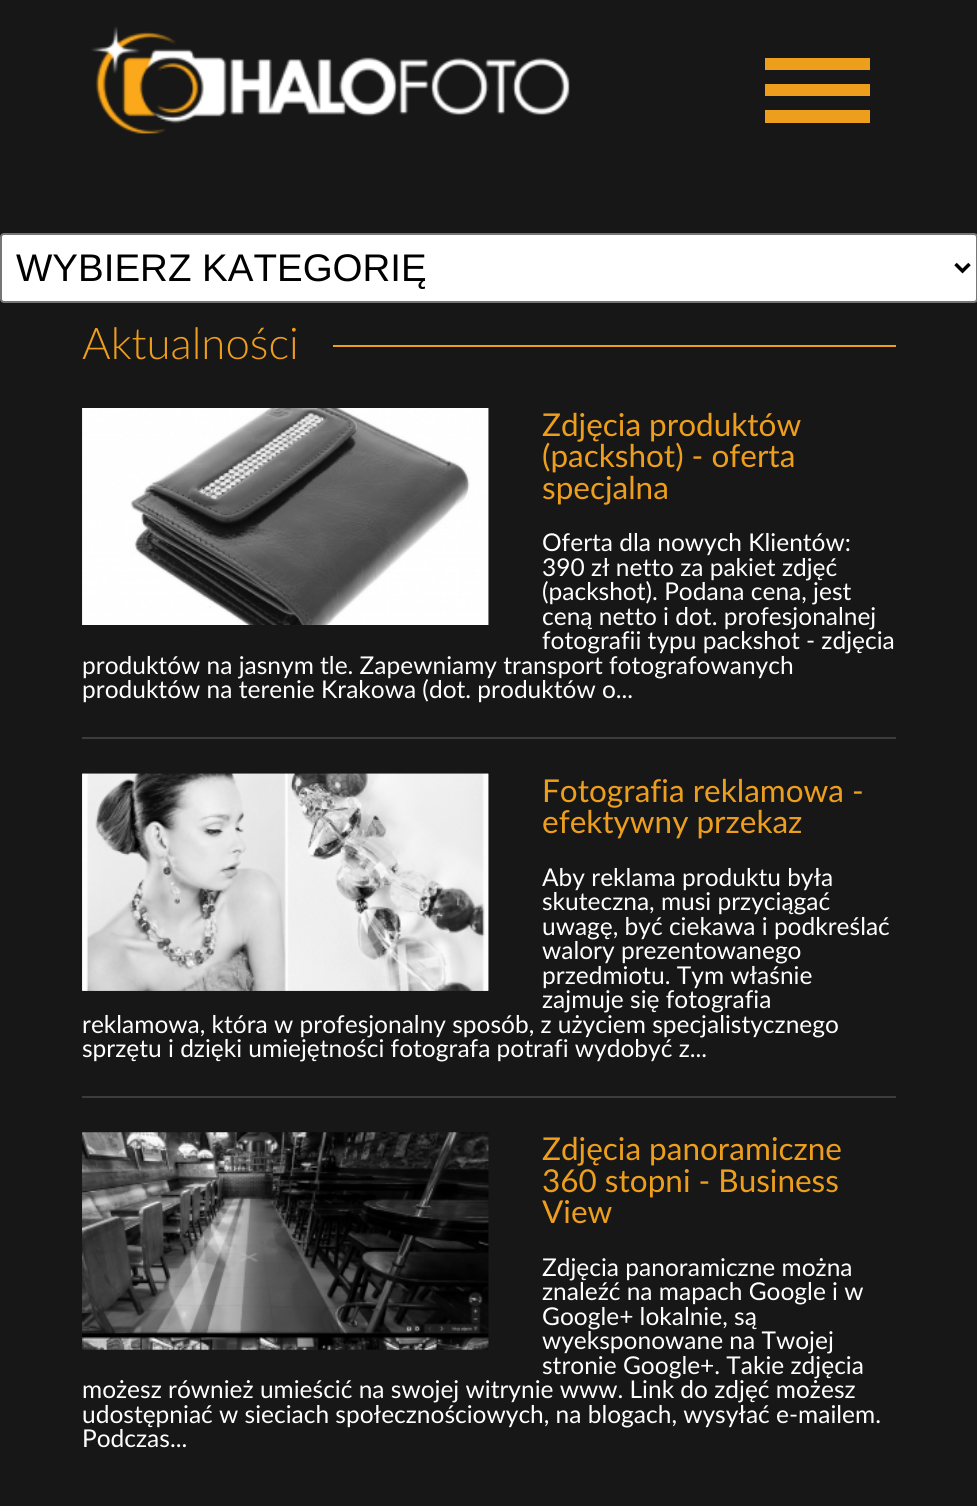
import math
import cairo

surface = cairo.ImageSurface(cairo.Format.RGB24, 977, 1506)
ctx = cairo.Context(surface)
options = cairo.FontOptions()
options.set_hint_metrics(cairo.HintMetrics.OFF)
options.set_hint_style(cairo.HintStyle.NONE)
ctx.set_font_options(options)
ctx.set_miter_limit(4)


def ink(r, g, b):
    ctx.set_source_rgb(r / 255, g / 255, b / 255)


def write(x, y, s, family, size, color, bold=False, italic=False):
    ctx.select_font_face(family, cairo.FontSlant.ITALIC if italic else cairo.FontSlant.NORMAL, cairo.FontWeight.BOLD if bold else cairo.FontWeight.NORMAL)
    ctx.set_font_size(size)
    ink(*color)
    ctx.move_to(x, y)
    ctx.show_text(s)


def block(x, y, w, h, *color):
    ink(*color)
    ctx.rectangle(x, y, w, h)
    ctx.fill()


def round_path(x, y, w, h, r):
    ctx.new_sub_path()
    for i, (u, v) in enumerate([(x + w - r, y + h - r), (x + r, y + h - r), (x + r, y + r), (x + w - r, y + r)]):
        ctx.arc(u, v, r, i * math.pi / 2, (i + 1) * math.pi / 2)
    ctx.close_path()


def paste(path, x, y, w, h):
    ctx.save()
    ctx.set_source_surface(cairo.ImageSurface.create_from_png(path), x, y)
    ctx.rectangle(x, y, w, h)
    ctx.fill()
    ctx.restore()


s1 = dict(family="Liberation Sans", size=38.5, color=(0, 0, 0))
s2 = dict(family="Lato Light", size=43.75, color=(237, 158, 29))
s3 = dict(family="Lato", size=31.5, color=(237, 158, 29))
s4 = dict(family="Lato", size=24.5, color=(255, 255, 255))

ink(23, 23, 23)
ctx.paint()
paste("pic1.png", 91, 26, 479, 108)
block(765, 84, 105, 12, 237, 158, 29)
block(765, 58, 105, 12, 237, 158, 29)
block(765, 110, 105, 13, 237, 158, 29)
ink(255, 255, 255)
round_path(1, 234, 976, 68, 3)
ctx.fill_preserve()
ink(118, 118, 118)
ctx.stroke()
ctx.new_path()
ctx.move_to(955.5, 264)
ctx.line_to(962.5, 271)
ctx.line_to(969.5, 264)
ink(0, 0, 0)
ctx.set_line_width(3.5)
ctx.stroke()
write(16, 281, "WYBIERZ KATEGORIĘ", **s1)
write(82, 359, "Aktualności", **s2)
block(333, 345, 563, 2, 237, 158, 29)
block(82, 737, 814, 2, 60, 60, 60)
paste("pic2.png", 82, 408, 407, 217)
paste("pic3.png", 82, 408, 407, 217)
write(542, 436, "Zdjęcia produktów", **s3)
write(542, 467, "(packshot) - oferta", **s3)
write(542, 499, "specjalna", **s3)
write(542, 551, "Oferta dla nowych Klientów:", **s4)
write(542, 576, "390 zł netto za pakiet zdjęć", **s4)
write(542, 600, "(packshot). Podana cena, jest", **s4)
write(542, 625, "ceną netto i dot. profesjonalnej", **s4)
write(542, 649, "fotografii typu packshot - zdjęcia", **s4)
write(82, 674, "produktów na jasnym tle. Zapewniamy transport fotografowanych", **s4)
write(82, 698, "produktów na terenie Krakowa (dot. produktów o...", **s4)
block(82, 1096, 814, 2, 60, 60, 60)
paste("pic4.png", 82, 773, 407, 218)
paste("pic5.png", 82, 773, 407, 218)
write(542, 802, "Fotografia reklamowa -", **s3)
write(542, 833, "efektywny przekaz", **s3)
write(542, 886, "Aby reklama produktu była", **s4)
write(542, 910, "skuteczna, musi przyciągać", **s4)
write(542, 935, "uwagę, być ciekawa i podkreślać", **s4)
write(542, 959, "walory prezentowanego", **s4)
write(542, 984, "przedmiotu. Tym właśnie", **s4)
write(542, 1008, "zajmuje się fotografia", **s4)
write(82, 1033, "reklamowa, która w profesjonalny sposób, z użyciem specjalistycznego", **s4)
write(82, 1057, "sprzętu i dzięki umiejętności fotografa potrafi wydobyć z...", **s4)
paste("pic6.png", 82, 1132, 407, 218)
paste("pic7.png", 82, 1132, 407, 218)
write(542, 1160, "Zdjęcia panoramiczne", **s3)
write(542, 1192, "360 stopni - Business", **s3)
write(542, 1223, "View", **s3)
write(542, 1276, "Zdjęcia panoramiczne można", **s4)
write(542, 1300, "znaleźć na mapach Google i w", **s4)
write(542, 1325, "Google+ lokalnie, są", **s4)
write(542, 1349, "wyeksponowane na Twojej", **s4)
write(542, 1374, "stronie Google+. Takie zdjęcia", **s4)
write(82, 1398, "możesz również umieścić na swojej witrynie www. Link do zdjęć możesz", **s4)
write(82, 1423, "udostępniać w sieciach społecznościowych, na blogach, wysyłać e-mailem.", **s4)
write(82, 1447, "Podczas...", **s4)
surface.write_to_png("screenshot.png")
